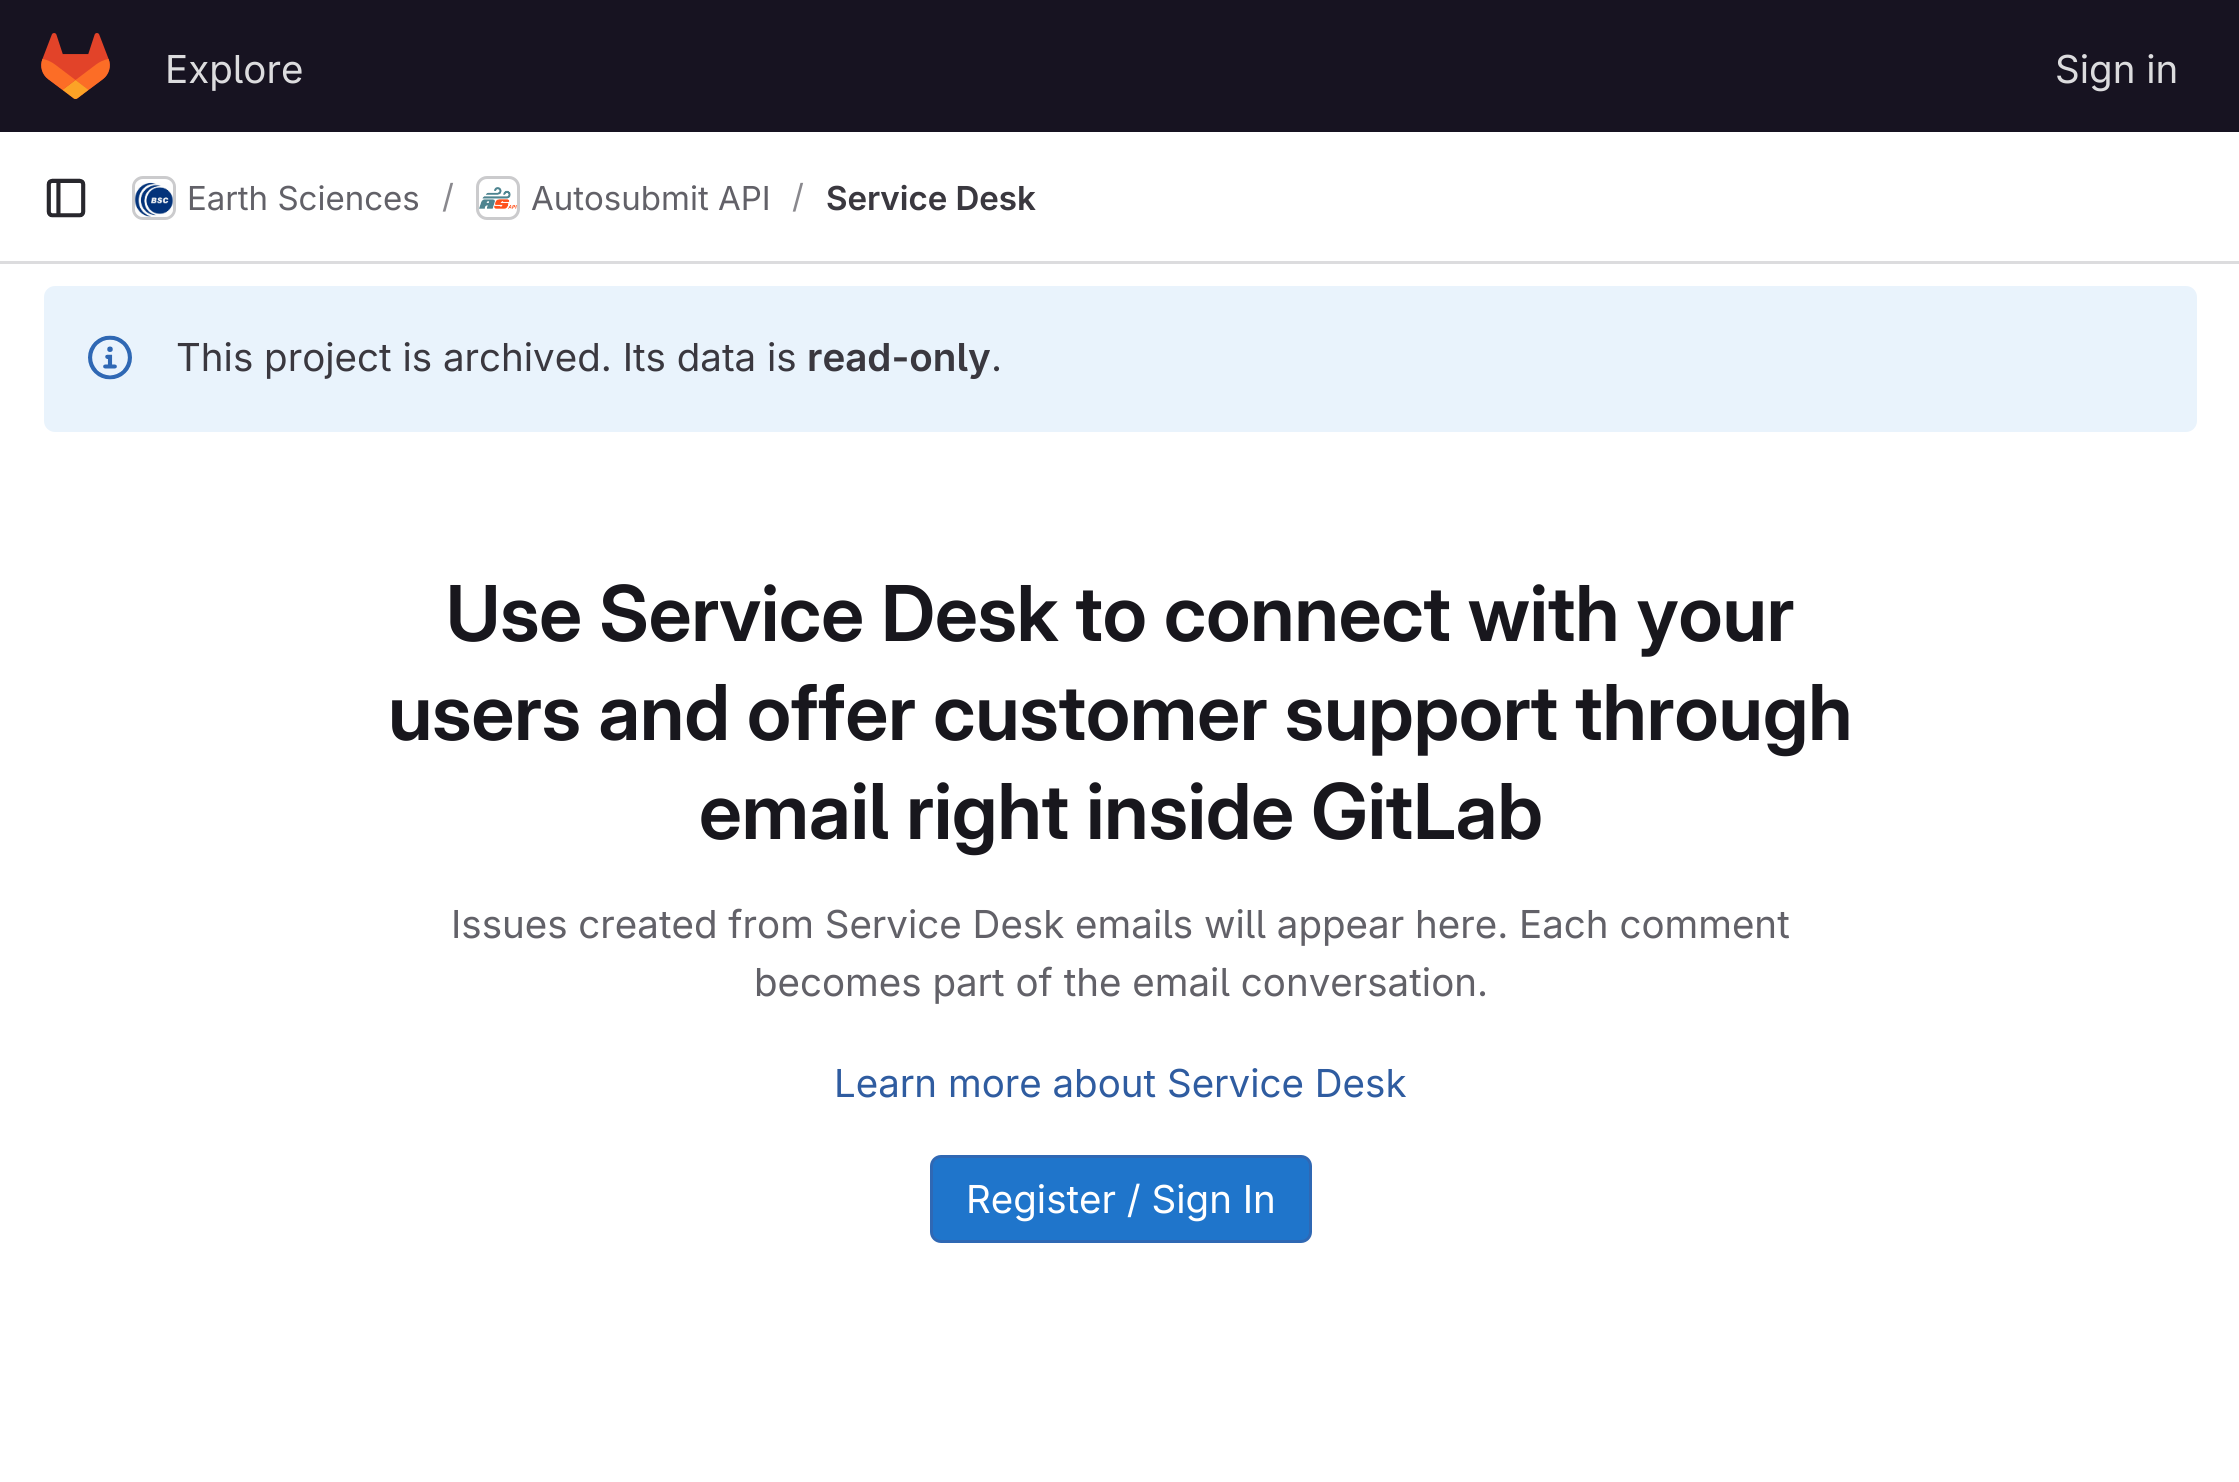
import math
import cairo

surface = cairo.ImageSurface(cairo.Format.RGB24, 2239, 1482)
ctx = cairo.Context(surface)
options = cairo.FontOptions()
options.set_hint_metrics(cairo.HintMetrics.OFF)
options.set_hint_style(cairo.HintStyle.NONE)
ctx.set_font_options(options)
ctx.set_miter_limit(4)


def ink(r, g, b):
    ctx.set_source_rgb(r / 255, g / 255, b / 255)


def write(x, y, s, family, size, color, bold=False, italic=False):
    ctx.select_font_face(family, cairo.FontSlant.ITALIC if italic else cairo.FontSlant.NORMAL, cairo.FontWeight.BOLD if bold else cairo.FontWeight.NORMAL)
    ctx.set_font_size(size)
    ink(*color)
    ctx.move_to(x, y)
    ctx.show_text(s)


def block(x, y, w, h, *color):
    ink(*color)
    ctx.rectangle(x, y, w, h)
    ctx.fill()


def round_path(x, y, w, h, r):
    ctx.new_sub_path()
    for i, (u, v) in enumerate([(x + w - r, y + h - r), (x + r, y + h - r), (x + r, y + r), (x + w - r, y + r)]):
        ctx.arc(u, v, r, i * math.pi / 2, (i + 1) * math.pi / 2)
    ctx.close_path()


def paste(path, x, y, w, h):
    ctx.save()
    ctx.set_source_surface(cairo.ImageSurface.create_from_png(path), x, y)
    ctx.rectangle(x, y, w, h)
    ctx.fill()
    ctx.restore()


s1 = dict(family="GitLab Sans", size=38.5, color=(220, 220, 222))
s2 = dict(family="GitLab Sans", size=33, color=(98, 97, 104))
s3 = dict(family="GitLab Sans", size=33, color=(137, 136, 141))
s4 = dict(family="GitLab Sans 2 SemiBold", size=33, color=(58, 56, 63))
s5 = dict(family="GitLab Sans", size=38.5, color=(58, 56, 63))
s6 = dict(family="GitLab Sans 2 SemiBold", size=38.5, color=(58, 56, 63))
s7 = dict(family="GitLab Sans SemiBold", size=77, color=(24, 23, 29))
s8 = dict(family="GitLab Sans", size=38.5, color=(98, 97, 104))
s9 = dict(family="GitLab Sans", size=38.5, color=(47, 92, 160))
s10 = dict(family="GitLab Sans", size=38.5, color=(255, 255, 255))

ink(255, 255, 255)
ctx.paint()
block(0, 0, 2239, 132, 23, 19, 33)
paste("pic1.png", 41, 33, 69, 66)
write(165, 83, "Explore", **s1)
write(2055, 83, "Sign in", **s1)
block(0, 261, 2239, 3, 220, 220, 222)
paste("pic2.png", 46, 178, 40, 40)
round_path(133.5, 177.5, 41, 41, 9.5)
ctx.set_line_width(3)
ctx.stroke()
paste("pic3.png", 134, 181, 39, 36)
round_path(133.5, 177.5, 41, 41, 9.5)
ctx.set_source_rgba(0.02, 0.02, 0.024, 0.08)
ctx.stroke()
write(187, 210, "Earth Sciences", **s2)
write(442, 208, "/", **s3)
round_path(477.5, 177.5, 41, 41, 9.5)
ink(220, 220, 222)
ctx.stroke()
paste("pic4.png", 479, 187, 38, 22)
round_path(477.5, 177.5, 41, 41, 9.5)
ctx.set_source_rgba(0.02, 0.02, 0.024, 0.08)
ctx.stroke()
write(531, 210, "Autosubmit API", **s2)
write(792, 208, "/", **s3)
write(826, 210, "Service Desk", **s4)
ink(233, 243, 252)
round_path(44, 286, 2153, 146, 11)
ctx.fill()
paste("pic5.png", 88, 335, 44, 45)
write(176, 371, "This project is archived. Its data is", **s5)
write(807, 371, "read-only", **s6)
write(991, 371, ".", **s5)
write(446, 641, "Use Service Desk to connect with your", **s7)
write(388, 740, "users and offer customer support through", **s7)
write(699, 839, "email right inside GitLab", **s7)
write(451, 938, "Issues created from Service Desk emails will appear here. Each comment", **s8)
write(754, 996, "becomes part of the email conversation.", **s8)
write(834, 1097, "Learn more about Service Desk", **s9)
ink(31, 117, 203)
round_path(931.5, 1156.5, 379, 85, 9.5)
ctx.fill_preserve()
ink(47, 104, 180)
ctx.stroke()
write(966, 1213, "Register / Sign In", **s10)
surface.write_to_png("screenshot.png")
